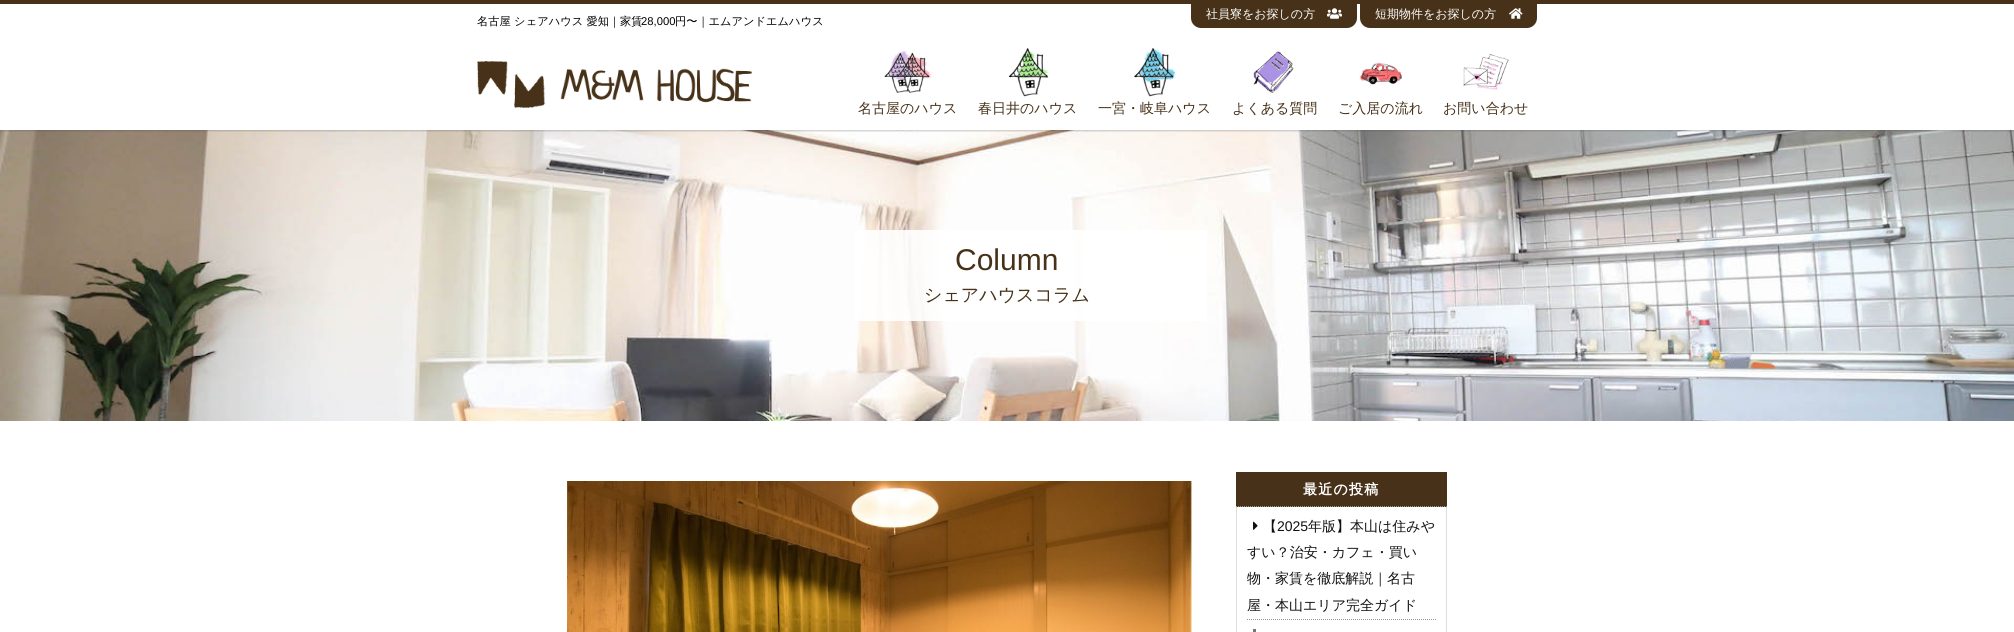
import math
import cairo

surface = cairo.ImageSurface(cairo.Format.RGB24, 2014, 632)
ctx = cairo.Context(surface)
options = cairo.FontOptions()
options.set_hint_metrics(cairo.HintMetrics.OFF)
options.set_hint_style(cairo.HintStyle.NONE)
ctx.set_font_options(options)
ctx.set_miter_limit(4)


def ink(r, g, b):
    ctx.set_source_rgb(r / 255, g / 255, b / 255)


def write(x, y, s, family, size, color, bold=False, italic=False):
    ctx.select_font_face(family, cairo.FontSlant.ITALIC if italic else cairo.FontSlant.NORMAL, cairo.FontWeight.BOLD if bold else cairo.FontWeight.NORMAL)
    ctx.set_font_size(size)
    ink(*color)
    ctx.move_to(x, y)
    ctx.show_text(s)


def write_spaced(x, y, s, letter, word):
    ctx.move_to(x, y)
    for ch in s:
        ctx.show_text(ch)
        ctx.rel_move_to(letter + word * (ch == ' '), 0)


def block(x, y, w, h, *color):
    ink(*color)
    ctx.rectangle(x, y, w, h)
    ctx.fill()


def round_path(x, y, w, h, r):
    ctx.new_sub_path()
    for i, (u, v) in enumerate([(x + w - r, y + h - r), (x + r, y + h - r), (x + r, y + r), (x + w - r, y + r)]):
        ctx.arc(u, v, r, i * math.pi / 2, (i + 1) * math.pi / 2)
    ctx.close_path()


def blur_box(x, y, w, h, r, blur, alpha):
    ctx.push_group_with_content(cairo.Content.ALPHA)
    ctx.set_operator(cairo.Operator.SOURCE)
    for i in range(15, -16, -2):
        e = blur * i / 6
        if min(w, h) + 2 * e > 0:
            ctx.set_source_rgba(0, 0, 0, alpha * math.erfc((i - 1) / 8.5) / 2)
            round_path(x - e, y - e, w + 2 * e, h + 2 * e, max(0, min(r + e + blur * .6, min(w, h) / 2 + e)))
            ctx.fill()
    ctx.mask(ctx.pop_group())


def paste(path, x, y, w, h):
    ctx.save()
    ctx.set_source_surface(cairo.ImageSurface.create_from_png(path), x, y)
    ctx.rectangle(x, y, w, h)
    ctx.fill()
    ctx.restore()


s1 = dict(family="WenQuanYi Zen Hei Medium", size=12, color=(255, 255, 255))
s2 = dict(family="WenQuanYi Zen Hei Medium", size=11.25, color=(0, 0, 0))
s3 = dict(family="Liberation Sans", size=11.25, color=(0, 0, 0))
s4 = dict(family="WenQuanYi Zen Hei Medium", size=14, color=(71, 49, 24))
s5 = dict(family="Liberation Sans", size=30, color=(71, 49, 24))
s6 = dict(family="WenQuanYi Zen Hei Medium", size=18, color=(71, 49, 24))
s7 = dict(family="WenQuanYi Zen Hei Medium", size=14, color=(17, 17, 17))
s8 = dict(family="Liberation Sans", size=14, color=(17, 17, 17))

ink(255, 255, 255)
ctx.paint()
paste("pic10.png", 0, 130, 2014, 291)
ctx.save()
ctx.rectangle(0, 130, 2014, 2)
ctx.clip()
ink(66, 66, 66)
blur_box(-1, -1, 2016, 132, 0, 1, 0.3)
ctx.restore()
block(0, 0, 2014, 4, 71, 49, 24)
ctx.new_path()
ctx.move_to(1191, 4)
ctx.line_to(1357, 4)
ctx.line_to(1357, 18)
ctx.curve_to(1357, 23.5, 1352.5, 28, 1347, 28)
ctx.line_to(1201, 28)
ctx.curve_to(1195.5, 28, 1191, 23.5, 1191, 18)
ctx.close_path()
ctx.fill()
write(1206, 18, "社員寮をお探しの方", **s1)
paste("pic1.png", 1327, 8, 15, 11)
ink(71, 49, 24)
ctx.new_path()
ctx.move_to(1360, 4)
ctx.line_to(1537, 4)
ctx.line_to(1537, 18)
ctx.curve_to(1537, 23.5, 1532.5, 28, 1527, 28)
ctx.line_to(1370, 28)
ctx.curve_to(1364.5, 28, 1360, 23.5, 1360, 18)
ctx.close_path()
ctx.fill()
write(1375, 18, "短期物件をお探しの方", **s1)
paste("pic2.png", 1509, 8, 14, 11)
write(477, 25, "名古屋 シェアハウス 愛知｜家賃", **s2)
write(641, 25, "28,000", **s3)
write(675, 25, "円〜｜エムアンドエムハウス", **s2)
paste("pic3.png", 477, 61, 275, 47)
paste("pic4.png", 884, 50, 49, 43)
write(858, 113, "名古屋のハウス", **s4)
paste("pic5.png", 1008, 48, 41, 49)
write(978, 113, "春日井のハウス", **s4)
paste("pic6.png", 1134, 48, 42, 49)
write(1098, 113, "一宮・岐阜ハウス", **s4)
paste("pic7.png", 1253, 51, 41, 42)
write(1232, 113, "よくある質問", **s4)
paste("pic8.png", 1359, 62, 43, 23)
write(1338, 113, "ご入居の流れ", **s4)
paste("pic9.png", 1463, 54, 46, 36)
write(1443, 113, "お問い合わせ", **s4)
ctx.set_source_rgba(1, 1, 1, 0.9)
ctx.rectangle(855, 230, 352, 91)
ctx.fill()
write(955, 270, "Column", **s5)
write(924, 301, "シェアハウスコラム", **s6)
paste("pic11.png", 567, 481, 625, 151)
block(1236, 472, 211, 35, 71, 49, 24)
ctx.new_path()
ctx.move_to(1236, 506.5)
ctx.line_to(1447, 506.5)
ink(153, 153, 153)
ctx.set_line_width(1)
ctx.set_dash([1, 1])
ctx.stroke()
ctx.select_font_face("WenQuanYi Zen Hei", cairo.FontSlant.NORMAL, cairo.FontWeight.BOLD)
ctx.set_font_size(14)
ink(255, 255, 255)
write_spaced(1303, 494, "最近の投稿", 1.25, 0)
block(1446, 507, 1, 125, 221, 221, 221)
block(1236, 507, 1, 125, 221, 221, 221)
ctx.new_path()
ctx.move_to(1247, 619.5)
ctx.line_to(1436, 619.5)
ink(153, 153, 153)
ctx.stroke()
paste("pic12.png", 1253, 521, 5, 9)
write(1263, 531, "【", **s7)
write(1277, 531, "2025", **s8)
write(1308, 531, "年版】本山は住みや", **s7)
write(1247, 557, "すい？治安・カフェ・買い", **s7)
write(1247, 583, "物・家賃を徹底解説｜名古", **s7)
write(1247, 610, "屋・本山エリア完全ガイド", **s7)
block(1253, 629, 3, 3, 117, 117, 117)
surface.write_to_png("screenshot.png")
